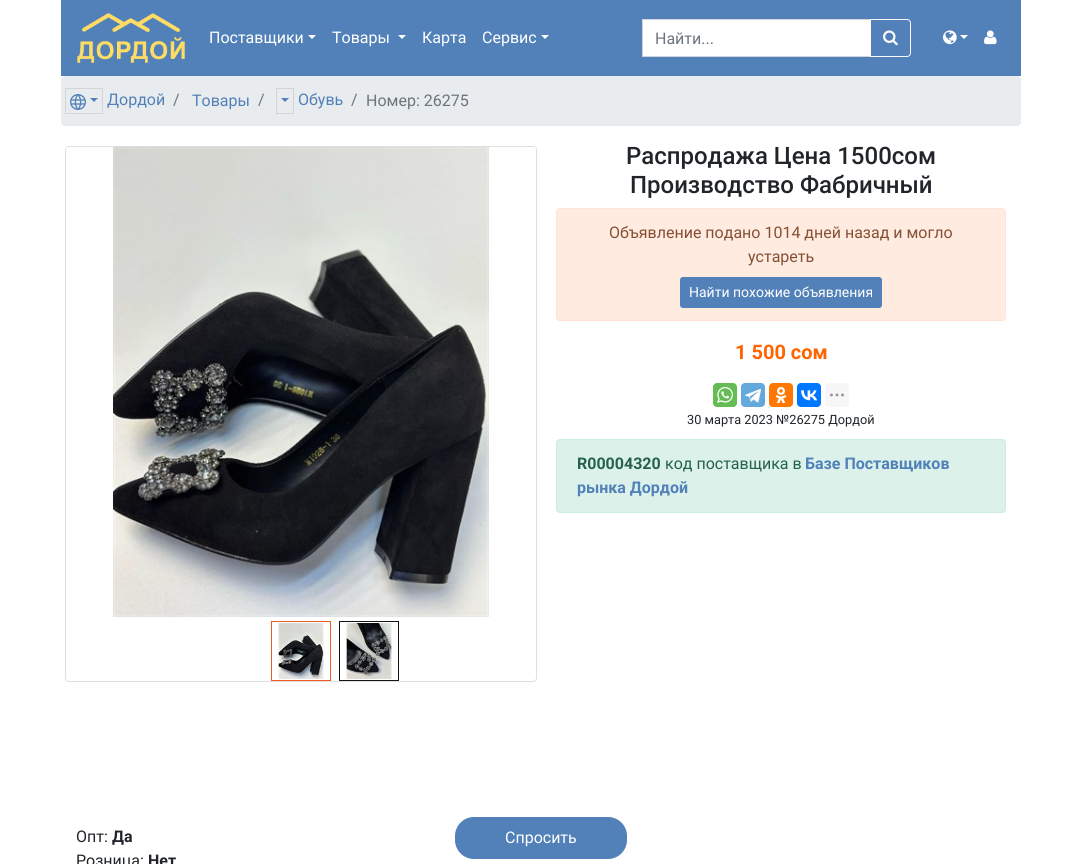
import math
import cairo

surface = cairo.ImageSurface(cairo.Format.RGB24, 1082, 864)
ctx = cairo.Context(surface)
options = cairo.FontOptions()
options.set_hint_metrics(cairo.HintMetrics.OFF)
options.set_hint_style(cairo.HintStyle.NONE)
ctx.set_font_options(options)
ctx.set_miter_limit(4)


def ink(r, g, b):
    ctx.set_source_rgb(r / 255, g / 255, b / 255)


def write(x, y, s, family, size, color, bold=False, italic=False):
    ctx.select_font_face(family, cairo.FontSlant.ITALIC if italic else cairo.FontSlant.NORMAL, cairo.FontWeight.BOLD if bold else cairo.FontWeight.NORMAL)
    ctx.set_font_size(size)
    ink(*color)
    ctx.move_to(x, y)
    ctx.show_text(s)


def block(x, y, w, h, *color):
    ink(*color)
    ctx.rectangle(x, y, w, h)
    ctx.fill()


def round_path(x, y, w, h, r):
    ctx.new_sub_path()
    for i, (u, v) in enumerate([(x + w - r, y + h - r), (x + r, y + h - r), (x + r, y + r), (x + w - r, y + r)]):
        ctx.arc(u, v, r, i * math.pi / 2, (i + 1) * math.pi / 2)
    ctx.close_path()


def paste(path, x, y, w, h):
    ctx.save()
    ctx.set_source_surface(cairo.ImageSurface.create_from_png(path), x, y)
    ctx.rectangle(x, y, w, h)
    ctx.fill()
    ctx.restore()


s1 = dict(family="Roboto", size=16, color=(255, 255, 255))
s2 = dict(family="Roboto", size=16, color=(108, 117, 125))
s3 = dict(family="Roboto", size=16, color=(81, 129, 184))
s4 = dict(family="Roboto Medium", size=24, color=(33, 37, 41))
s5 = dict(family="Roboto", size=16, color=(133, 80, 52))
s6 = dict(family="Roboto", size=14, color=(255, 255, 255))
s7 = dict(family="Roboto", size=20, color=(255, 100, 0), bold=True)
s8 = dict(family="Roboto", size=12.75, color=(33, 37, 41))
s9 = dict(family="Roboto", size=16, color=(38, 97, 79), bold=True)
s10 = dict(family="Roboto", size=16, color=(38, 97, 79))
s11 = dict(family="Roboto", size=16, color=(81, 129, 184), bold=True)
s12 = dict(family="Roboto", size=16, color=(33, 37, 41))
s13 = dict(family="Roboto", size=16, color=(33, 37, 41), bold=True)

ink(255, 255, 255)
ctx.paint()
block(61, 0, 960, 76, 81, 129, 184)
paste("pic1.png", 77, 13, 108, 50)
write(209, 43, "Поставщики", **s1)
ctx.new_path()
ctx.move_to(308, 35)
ctx.line_to(316, 35)
ctx.line_to(312, 39)
ctx.close_path()
ctx.fill()
write(332, 43, "Товары", **s1)
ctx.new_path()
ctx.move_to(398, 35)
ctx.line_to(406, 35)
ctx.line_to(402, 39)
ctx.close_path()
ctx.fill()
write(422, 43, "Карта", **s1)
write(482, 43, "Сервис", **s1)
ctx.new_path()
ctx.move_to(541, 35)
ctx.line_to(549, 35)
ctx.line_to(545, 39)
ctx.close_path()
ctx.fill()
ctx.rectangle(642.5, 19.5, 228, 37)
ctx.fill_preserve()
ink(206, 212, 218)
ctx.set_line_width(1)
ctx.stroke()
write(655, 44, "Найти...", **s2)
ctx.new_path()
ctx.move_to(870.5, 19.5)
ctx.line_to(907, 19.5)
ctx.curve_to(909, 19.5, 910.5, 21, 910.5, 23)
ctx.line_to(910.5, 53)
ctx.curve_to(910.5, 55, 909, 56.5, 907, 56.5)
ctx.line_to(870.5, 56.5)
ctx.close_path()
ink(248, 249, 250)
ctx.stroke()
paste("pic2.png", 883, 30, 15, 16)
paste("pic3.png", 943, 30, 14, 15)
ink(255, 255, 255)
ctx.new_path()
ctx.move_to(960, 35)
ctx.line_to(968, 35)
ctx.line_to(964, 39)
ctx.close_path()
ctx.fill()
paste("pic4.png", 984, 30, 13, 15)
ink(233, 236, 239)
round_path(61, 76, 960, 50, 4)
ctx.fill()
ctx.rectangle(65.5, 88.5, 37, 25)
ink(210, 212, 215)
ctx.stroke()
paste("pic5.png", 70, 94, 16, 16)
ink(81, 129, 184)
ctx.new_path()
ctx.move_to(90, 98)
ctx.line_to(98, 98)
ctx.line_to(94, 102)
ctx.close_path()
ctx.fill()
write(107, 105, "Дордой", **s3)
write(173, 105, "/", **s2)
write(192, 106, "Товары", **s3)
write(258, 105, "/", **s2)
ctx.rectangle(276.5, 88.5, 17, 25)
ink(210, 212, 215)
ctx.stroke()
ink(81, 129, 184)
ctx.new_path()
ctx.move_to(281, 98)
ctx.line_to(289, 98)
ctx.line_to(285, 102)
ctx.close_path()
ctx.fill()
write(298, 105, "Обувь", **s3)
write(351, 105, "/", **s2)
write(366, 106, "Номер: 26275", **s2)
round_path(65.5, 146.5, 471, 535, 3.5)
ink(223, 223, 223)
ctx.stroke()
paste("pic6.png", 66, 147, 470, 470)
ctx.rectangle(271.5, 621.5, 59, 59)
ink(240, 89, 35)
ctx.stroke()
paste("pic7.png", 277, 623, 49, 56)
ctx.rectangle(339.5, 621.5, 59, 59)
ink(20, 20, 20)
ctx.stroke()
paste("pic8.png", 346, 623, 49, 56)
write(626, 164, "Распродажа Цена 1500сом", **s4)
write(630, 193, "Производство Фабричный", **s4)
ink(255, 235, 224)
round_path(556.5, 208.5, 449, 112, 3.5)
ctx.fill_preserve()
ink(255, 227, 212)
ctx.stroke()
write(609, 238, "Объявление подано 1014 дней назад и могло", **s5)
write(748, 262, "устареть", **s5)
ink(81, 129, 184)
round_path(680.5, 277.5, 201, 30, 2.5)
ctx.fill_preserve()
ctx.stroke()
write(689, 297, "Найти похожие объявления", **s6)
write(735, 359, "1 500 сом", **s7)
ink(101, 188, 84)
round_path(713, 383, 24, 24, 4)
ctx.fill()
paste("pic9.png", 717, 387, 16, 16)
ink(100, 169, 220)
round_path(741, 383, 24, 24, 4)
ctx.fill()
paste("pic10.png", 745, 389, 16, 14)
ink(255, 119, 0)
round_path(769, 383, 24, 24, 4)
ctx.fill()
paste("pic11.png", 775, 387, 12, 16)
ink(0, 119, 255)
round_path(797, 383, 24, 24, 4)
ctx.fill()
paste("pic12.png", 801, 390, 16, 11)
ink(247, 247, 247)
round_path(825, 383, 24, 24, 4)
ctx.fill()
paste("pic13.png", 830, 393, 14, 4)
write(687, 424, "30 марта 2023 №26275 Дордой", **s8)
ink(219, 241, 234)
round_path(556.5, 439.5, 449, 73, 3.5)
ctx.fill_preserve()
ink(204, 236, 226)
ctx.stroke()
write(577, 469, "R00004320", **s9)
write(665, 469, "код поставщика в", **s10)
write(805, 469, "Базе Поставщиков", **s11)
write(577, 493, "рынка Дордой", **s11)
write(76, 842, "Опт:", **s12)
write(112, 842, "Да", **s13)
write(76, 866, "Розница:", **s12)
write(148, 866, "Нет", **s13)
ink(81, 129, 184)
round_path(454.5, 816.5, 173, 43, 19.5)
ctx.fill_preserve()
ink(255, 255, 255)
ctx.stroke()
write(505, 843, "Спросить", **s1)
surface.write_to_png("screenshot.png")
